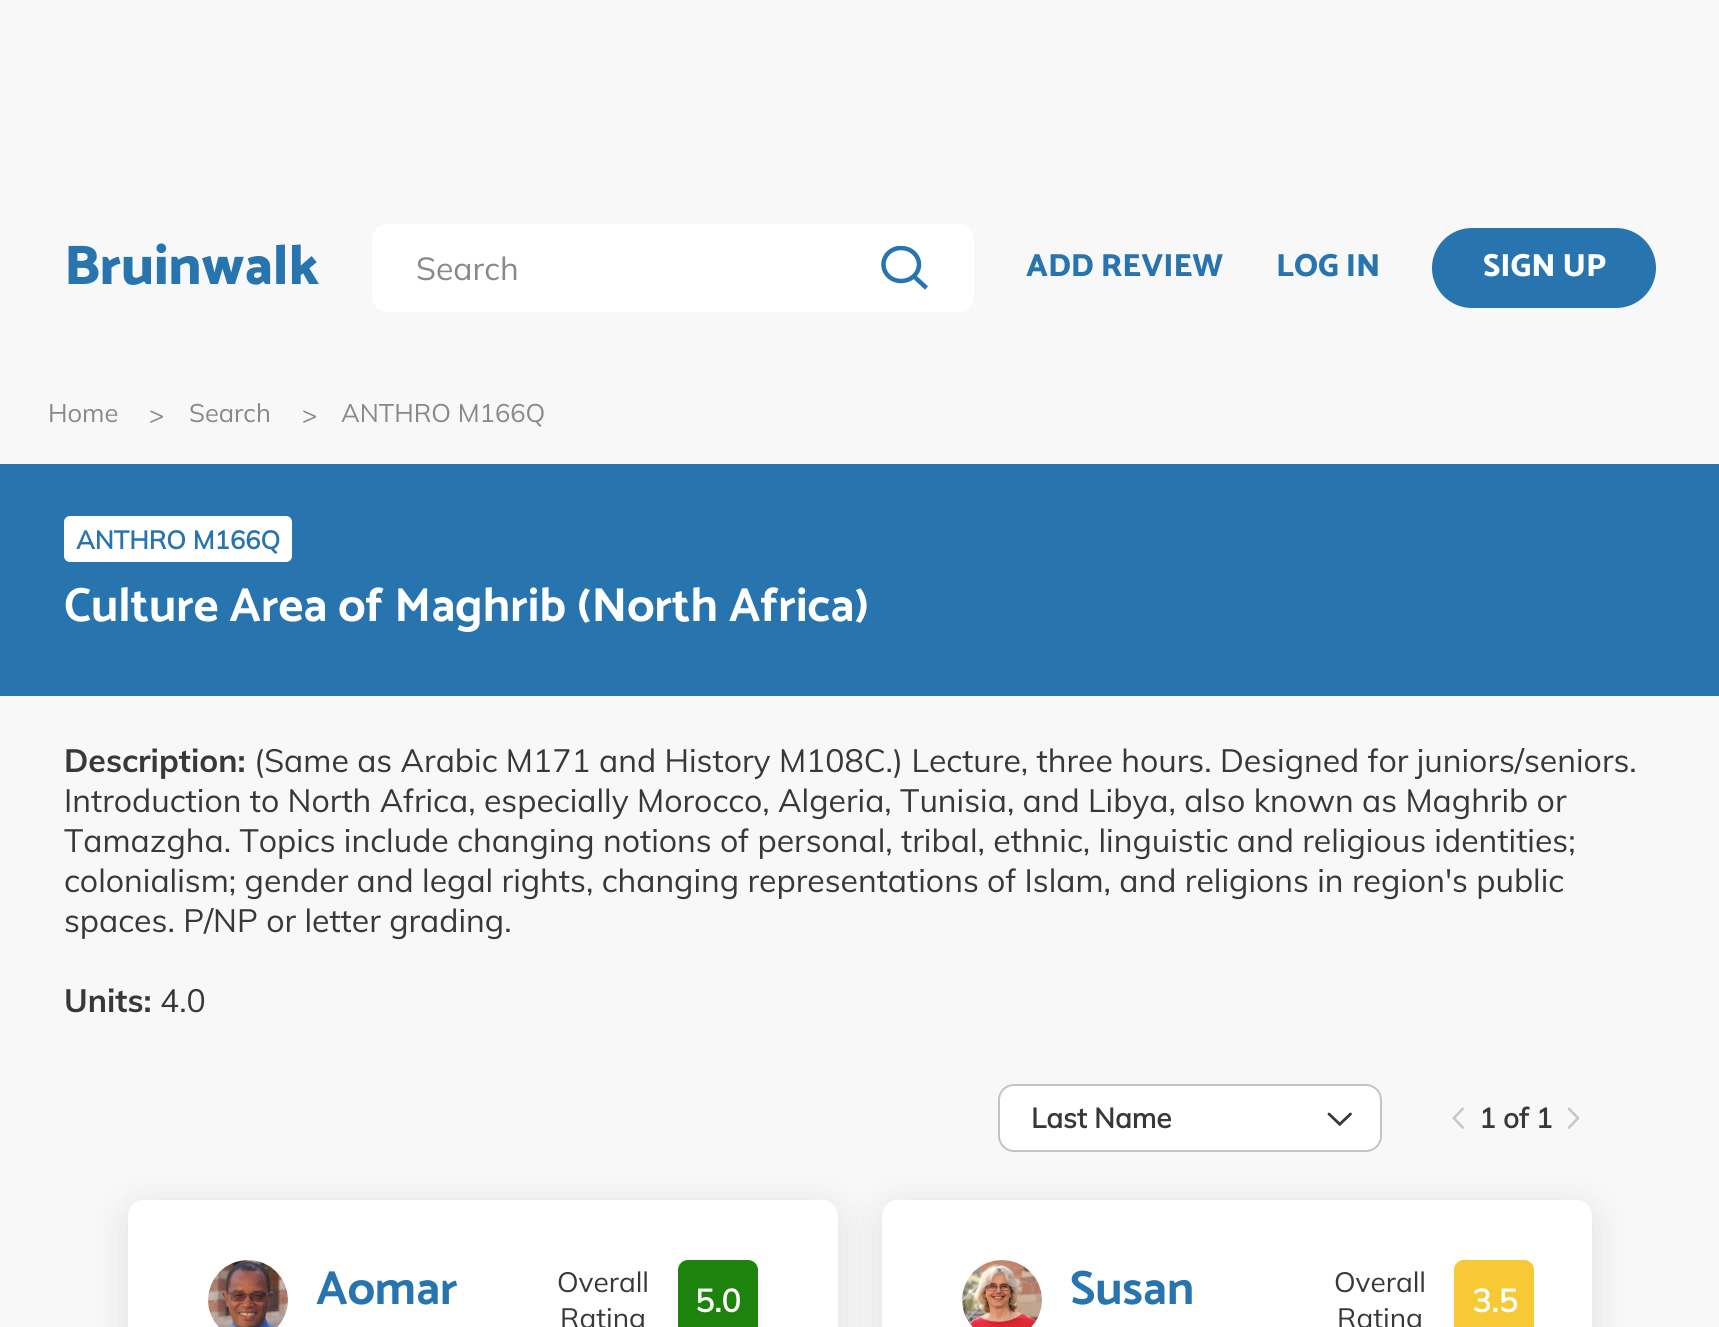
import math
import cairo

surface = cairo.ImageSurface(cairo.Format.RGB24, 1719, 1327)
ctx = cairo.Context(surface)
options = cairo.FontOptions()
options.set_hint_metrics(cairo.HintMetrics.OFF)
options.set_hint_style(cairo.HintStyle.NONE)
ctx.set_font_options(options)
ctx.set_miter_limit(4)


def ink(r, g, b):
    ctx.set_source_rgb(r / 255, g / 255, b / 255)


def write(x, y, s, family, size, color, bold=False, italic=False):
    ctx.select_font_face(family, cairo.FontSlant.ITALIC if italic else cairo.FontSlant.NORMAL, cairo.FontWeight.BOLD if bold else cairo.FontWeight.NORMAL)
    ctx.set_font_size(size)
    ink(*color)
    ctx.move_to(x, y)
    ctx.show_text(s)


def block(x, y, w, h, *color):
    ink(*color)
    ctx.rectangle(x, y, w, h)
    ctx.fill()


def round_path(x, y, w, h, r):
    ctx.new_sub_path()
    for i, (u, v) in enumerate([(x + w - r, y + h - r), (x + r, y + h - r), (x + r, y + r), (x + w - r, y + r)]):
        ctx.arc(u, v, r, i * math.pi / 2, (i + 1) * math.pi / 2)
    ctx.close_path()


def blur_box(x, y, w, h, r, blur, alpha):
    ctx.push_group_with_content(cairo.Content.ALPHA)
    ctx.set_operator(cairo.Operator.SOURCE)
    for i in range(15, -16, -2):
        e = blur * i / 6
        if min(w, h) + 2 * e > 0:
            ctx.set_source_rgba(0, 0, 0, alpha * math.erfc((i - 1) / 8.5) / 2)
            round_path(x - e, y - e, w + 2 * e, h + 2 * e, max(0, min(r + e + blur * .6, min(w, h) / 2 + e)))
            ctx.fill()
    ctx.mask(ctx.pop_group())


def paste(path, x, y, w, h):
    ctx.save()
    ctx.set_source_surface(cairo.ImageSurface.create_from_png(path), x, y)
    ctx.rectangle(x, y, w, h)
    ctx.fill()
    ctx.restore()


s1 = dict(family="Catamaran ExtraBold", size=56, color=(39, 116, 174))
s2 = dict(family="Mulish ExtraLight", size=32, color=(137, 137, 137))
s3 = dict(family="Catamaran ExtraBold", size=32, color=(39, 116, 174))
s4 = dict(family="Catamaran ExtraBold", size=32, color=(255, 255, 255))
s5 = dict(family="Mulish ExtraLight", size=25.5, color=(137, 137, 137))
s6 = dict(family="Mulish", size=25.5, color=(39, 116, 174), bold=True)
s7 = dict(family="Catamaran", size=48, color=(255, 255, 255), bold=True)
s8 = dict(family="Muli", size=32, color=(56, 56, 56), bold=True)
s9 = dict(family="Muli", size=32, color=(56, 56, 56))
s10 = dict(family="Mulish", size=28, color=(56, 56, 56), bold=True)
s11 = dict(family="Catamaran", size=48, color=(39, 116, 174), bold=True)
s12 = dict(family="Mulish ExtraLight", size=28, color=(56, 56, 56))
s13 = dict(family="Mulish", size=32, color=(255, 255, 255), bold=True)

ink(248, 248, 248)
ctx.paint()
write(64, 284, "Bruinwalk", **s1)
ink(255, 255, 255)
round_path(372, 224, 602, 88, 16)
ctx.fill()
write(416, 280, "Search", **s2)
ctx.save()
ctx.rectangle(880, 246, 48, 44)
ctx.clip()
ctx.new_path()
ctx.move_to(919, 264.5)
ctx.curve_to(919, 273.5, 911, 281, 901, 281)
ctx.curve_to(891, 281, 883.5, 273.5, 883.5, 264.5)
ctx.curve_to(883.5, 255.5, 891, 248, 901, 248)
ctx.curve_to(911, 248, 919, 255.5, 919, 264.5)
ctx.close_path()
ink(39, 116, 174)
ctx.set_line_width(4.5)
ctx.stroke()
ctx.restore()
ctx.new_path()
ctx.move_to(913, 275.5)
ctx.line_to(926.5, 288)
ink(39, 116, 174)
ctx.set_line_width(4.5)
ctx.stroke()
write(1026, 276, "ADD REVIEW", **s3)
write(1276, 276, "LOG IN", **s3)
round_path(1433, 229, 222, 78, 39)
ctx.fill_preserve()
ctx.set_line_width(2)
ctx.stroke()
write(1483, 276, "SIGN UP", **s4)
write(48, 422, "Home", **s5)
write(149, 424, ">", **s5)
write(189, 422, "Search", **s5)
write(302, 424, ">", **s5)
write(341, 422, "ANTHRO M166Q", **s5)
block(0, 464, 1719, 232, 39, 116, 174)
ink(255, 255, 255)
round_path(64, 516, 228, 46, 6)
ctx.fill()
write(76, 549, "ANTHRO M166Q", **s6)
write(64, 621, "Culture Area of Maghrib (North Africa)", **s7)
write(64, 772, "Description:", **s8)
write(254, 772, "(Same as Arabic M171 and History M108C.) Lecture, three hours. Designed for juniors/seniors.", **s9)
write(64, 812, "Introduction to North Africa, especially Morocco, Algeria, Tunisia, and Libya, also known as Maghrib or", **s9)
write(64, 852, "Tamazgha. Topics include changing notions of personal, tribal, ethnic, linguistic and religious identities;", **s9)
write(64, 892, "colonialism; gender and legal rights, changing representations of Islam, and religions in region's public", **s9)
write(64, 932, "spaces. P/NP or letter grading.", **s9)
write(64, 1012, "Units:", **s8)
write(160, 1012, "4.0", **s9)
ink(0, 0, 0)
blur_box(128, 1208, 710, 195, 16, 20, 0.1)
ink(255, 255, 255)
round_path(128, 1200, 710, 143, 16)
ctx.fill()
ink(0, 0, 0)
blur_box(882, 1208, 710, 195, 16, 20, 0.1)
ink(255, 255, 255)
round_path(998, 1084, 384, 68, 16)
ctx.fill()
round_path(999, 1085, 382, 66, 15)
ctx.set_source_rgba(0.537, 0.537, 0.537, 0.5)
ctx.stroke()
write(1031, 1128, "Last Name", **s10)
paste("pic1.png", 1327, 1112, 25, 14)
paste("pic2.png", 1452, 1107, 12, 22)
write(1479, 1128, "1 of 1", **s10)
paste("pic3.png", 1567, 1107, 13, 22)
ink(255, 255, 255)
round_path(882, 1200, 710, 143, 16)
ctx.fill()
paste("pic4.png", 208, 1260, 80, 67)
write(316, 1304, "Aomar", **s11)
write(557, 1292, "Overall", **s12)
write(560, 1328, "Rating", **s12)
ink(29, 131, 13)
round_path(678, 1260, 80, 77, 10)
ctx.fill()
write(695, 1312, "5.0", **s13)
paste("pic5.png", 962, 1260, 80, 67)
write(1070, 1304, "Susan", **s11)
write(1334, 1292, "Overall", **s12)
write(1337, 1328, "Rating", **s12)
ink(247, 201, 53)
round_path(1454, 1260, 80, 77, 10)
ctx.fill()
write(1472, 1312, "3.5", **s13)
surface.write_to_png("screenshot.png")
